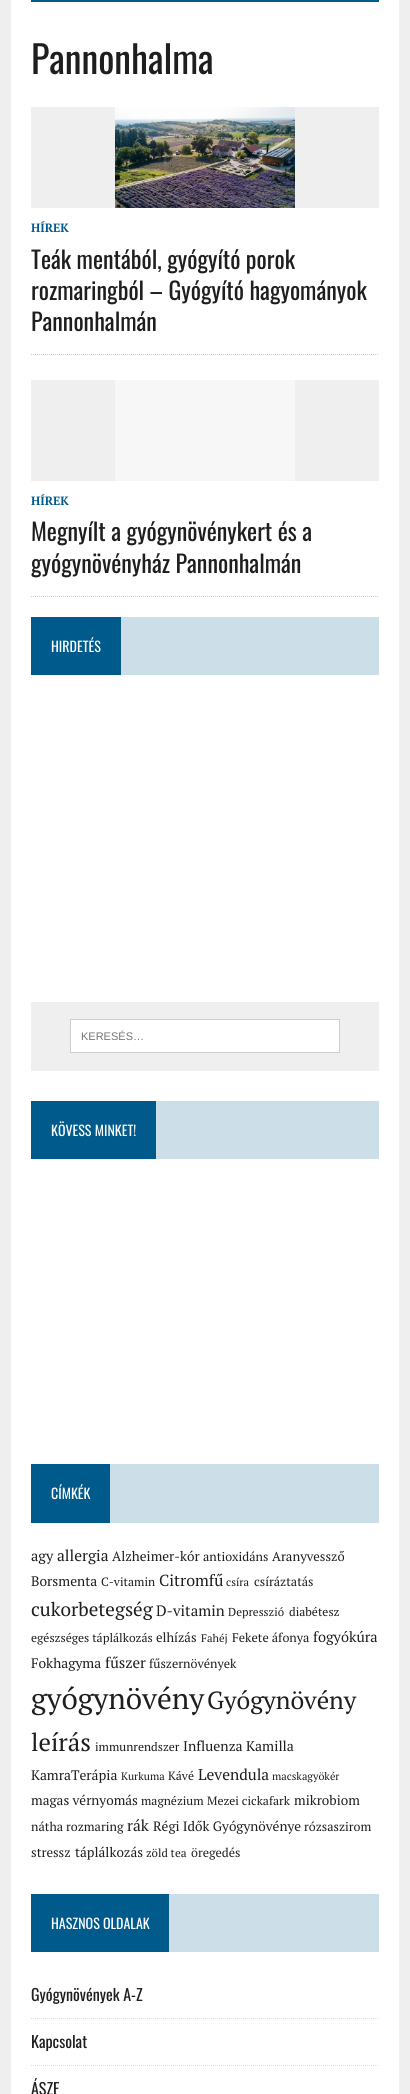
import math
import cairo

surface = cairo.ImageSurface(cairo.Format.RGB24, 410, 2094)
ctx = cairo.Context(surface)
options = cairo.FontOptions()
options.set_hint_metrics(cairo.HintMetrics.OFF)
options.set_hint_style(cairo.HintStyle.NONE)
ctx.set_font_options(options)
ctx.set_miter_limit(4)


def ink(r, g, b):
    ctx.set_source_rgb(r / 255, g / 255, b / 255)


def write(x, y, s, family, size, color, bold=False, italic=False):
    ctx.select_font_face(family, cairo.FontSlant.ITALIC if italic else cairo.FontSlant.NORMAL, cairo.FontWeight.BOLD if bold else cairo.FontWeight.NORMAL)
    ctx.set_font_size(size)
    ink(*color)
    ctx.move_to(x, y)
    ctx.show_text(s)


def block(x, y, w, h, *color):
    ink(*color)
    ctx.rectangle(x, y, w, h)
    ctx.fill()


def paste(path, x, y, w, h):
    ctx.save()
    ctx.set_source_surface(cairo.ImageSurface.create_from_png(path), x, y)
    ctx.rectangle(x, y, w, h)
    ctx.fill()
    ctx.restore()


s1 = dict(family="Oswald", size=38, color=(31, 30, 30))
s2 = dict(family="PT Serif", size=12, color=(0, 90, 140), bold=True)
s3 = dict(family="Oswald", size=24, color=(31, 30, 30))
s4 = dict(family="Oswald", size=14, color=(255, 255, 255))
s5 = dict(family="Liberation Sans", size=11, color=(117, 117, 117))
s6 = dict(family="PT Serif", size=14.5, color=(31, 30, 30))
s7 = dict(family="PT Serif", size=15.5, color=(31, 30, 30))
s8 = dict(family="PT Serif", size=13.5, color=(31, 30, 30))
s9 = dict(family="PT Serif", size=12.5, color=(31, 30, 30))
s10 = dict(family="PT Serif", size=13, color=(31, 30, 30))
s11 = dict(family="PT Serif", size=13.75, color=(31, 30, 30))
s12 = dict(family="PT Serif", size=12, color=(31, 30, 30))
s13 = dict(family="PT Serif", size=16, color=(31, 30, 30))
s14 = dict(family="PT Serif", size=11, color=(31, 30, 30))
s15 = dict(family="PT Serif", size=19, color=(31, 30, 30))
s16 = dict(family="PT Serif", size=15, color=(31, 30, 30))
s17 = dict(family="PT Serif", size=11.5, color=(31, 30, 30))
s18 = dict(family="PT Serif", size=29.5, color=(31, 30, 30))
s19 = dict(family="PT Serif", size=24.75, color=(31, 30, 30))
s20 = dict(family="PT Serif", size=14, color=(31, 30, 30))
s21 = dict(family="PT Serif", size=10.75, color=(31, 30, 30))
s22 = dict(family="Oswald", size=16, color=(31, 30, 30))

ink(239, 239, 239)
ctx.paint()
block(11, 0, 388, 2094, 255, 255, 255)
block(31, 0, 348, 2, 0, 90, 140)
write(31, 74, "Pannonhalma", **s1)
block(31, 107, 348, 101, 239, 239, 239)
paste("pic1.png", 115, 107, 180, 101)
write(31, 232, "HÍREK", **s2)
write(31, 269, "Teák mentából, gyógyító porok", **s3)
write(31, 300, "rozmaringból – Gyógyító hagyományok", **s3)
write(31, 331, "Pannonhalmán", **s3)
ctx.new_path()
ctx.move_to(31, 354.5)
ctx.line_to(379, 354.5)
ink(205, 205, 205)
ctx.set_line_width(1)
ctx.set_dash([1, 1])
ctx.stroke()
block(31, 380, 348, 101, 239, 239, 239)
block(115, 380, 180, 101, 247, 247, 247)
write(31, 505, "HÍREK", **s2)
write(31, 541, "Megnyílt a gyógynövénykert és a", **s3)
write(31, 573, "gyógynövényház Pannonhalmán", **s3)
ctx.new_path()
ctx.move_to(31, 596.5)
ctx.line_to(379, 596.5)
ink(205, 205, 205)
ctx.stroke()
block(121, 617, 258, 58, 204, 222, 232)
block(31, 617, 90, 58, 0, 90, 140)
write(51, 652, "HIRDETÉS", **s4)
block(31, 1002, 348, 69, 239, 239, 239)
ink(255, 255, 255)
ctx.rectangle(70.5, 1019.5, 269, 33)
ctx.fill_preserve()
ink(205, 205, 205)
ctx.set_dash([])
ctx.stroke()
write(81, 1040, "KERESÉS…", **s5)
block(156, 1101, 223, 58, 204, 222, 232)
block(31, 1101, 125, 58, 0, 90, 140)
write(51, 1136, "KÖVESS MINKET!", **s4)
block(110, 1464, 269, 59, 204, 222, 232)
block(31, 1464, 79, 59, 0, 90, 140)
write(51, 1499, "CÍMKÉK", **s4)
write(31, 1561, "agy", **s6)
write(57, 1561, "allergia", **s7)
write(112, 1561, "Alzheimer-kór", **s8)
write(203, 1561, "antioxidáns", **s9)
write(272, 1561, "Aranyvessző", **s10)
write(31, 1586, "Borsmenta", **s11)
write(101, 1586, "C-vitamin", **s12)
write(159, 1586, "Citromfű", **s13)
write(226, 1586, "csíra", **s14)
write(254, 1586, "csíráztatás", **s9)
write(31, 1616, "cukorbetegség", **s15)
write(156, 1616, "D-vitamin", **s16)
write(228, 1616, "Depresszió", **s17)
write(289, 1616, "diabétesz", **s12)
write(31, 1642, "egészséges táplálkozás", **s12)
write(156, 1642, "elhízás", **s10)
write(201, 1642, "Fahéj", **s14)
write(232, 1642, "Fekete áfonya", **s9)
write(313, 1642, "fogyókúra", **s6)
write(31, 1668, "Fokhagyma", **s11)
write(105, 1668, "fűszer", **s16)
write(149, 1668, "fűszernövények", **s9)
write(31, 1709, "gyógynövény", **s18)
write(207, 1709, "Gyógynövény", **s19)
write(31, 1751, "leírás", **s19)
write(95, 1751, "immunrendszer", **s12)
write(183, 1751, "Influenza", **s20)
write(246, 1751, "Kamilla", **s20)
write(31, 1780, "KamraTerápia", **s11)
write(121, 1780, "Kurkuma", **s21)
write(168, 1780, "Kávé", **s12)
write(198, 1780, "Levendula", **s7)
write(272, 1780, "macskagyökér", **s21)
write(31, 1805, "magas vérnyomás", **s8)
write(141, 1805, "magnézium", **s12)
write(207, 1805, "Mezei cickafark", **s12)
write(294, 1805, "mikrobiom", **s8)
write(31, 1831, "nátha", **s9)
write(66, 1831, "rozmaring", **s9)
write(127, 1831, "rák", **s7)
write(153, 1831, "Régi Idők Gyógynövénye", **s8)
write(304, 1831, "rózsaszirom", **s9)
write(31, 1857, "stressz", **s10)
write(75, 1857, "táplálkozás", **s8)
write(146, 1857, "zöld tea", **s17)
write(191, 1857, "öregedés", **s9)
block(169, 1894, 210, 58, 204, 222, 232)
block(31, 1894, 138, 58, 0, 90, 140)
write(51, 1929, "HASZNOS OLDALAK", **s4)
ctx.new_path()
ctx.move_to(31, 2018.5)
ctx.line_to(379, 2018.5)
ink(220, 220, 220)
ctx.set_dash([1, 1])
ctx.stroke()
write(31, 2001, "Gyógynövények A-Z", **s22)
ctx.new_path()
ctx.move_to(31, 2065.5)
ctx.line_to(379, 2065.5)
ink(220, 220, 220)
ctx.stroke()
write(31, 2048, "Kapcsolat", **s22)
write(31, 2095, "ÁSZF", **s22)
surface.write_to_png("screenshot.png")
